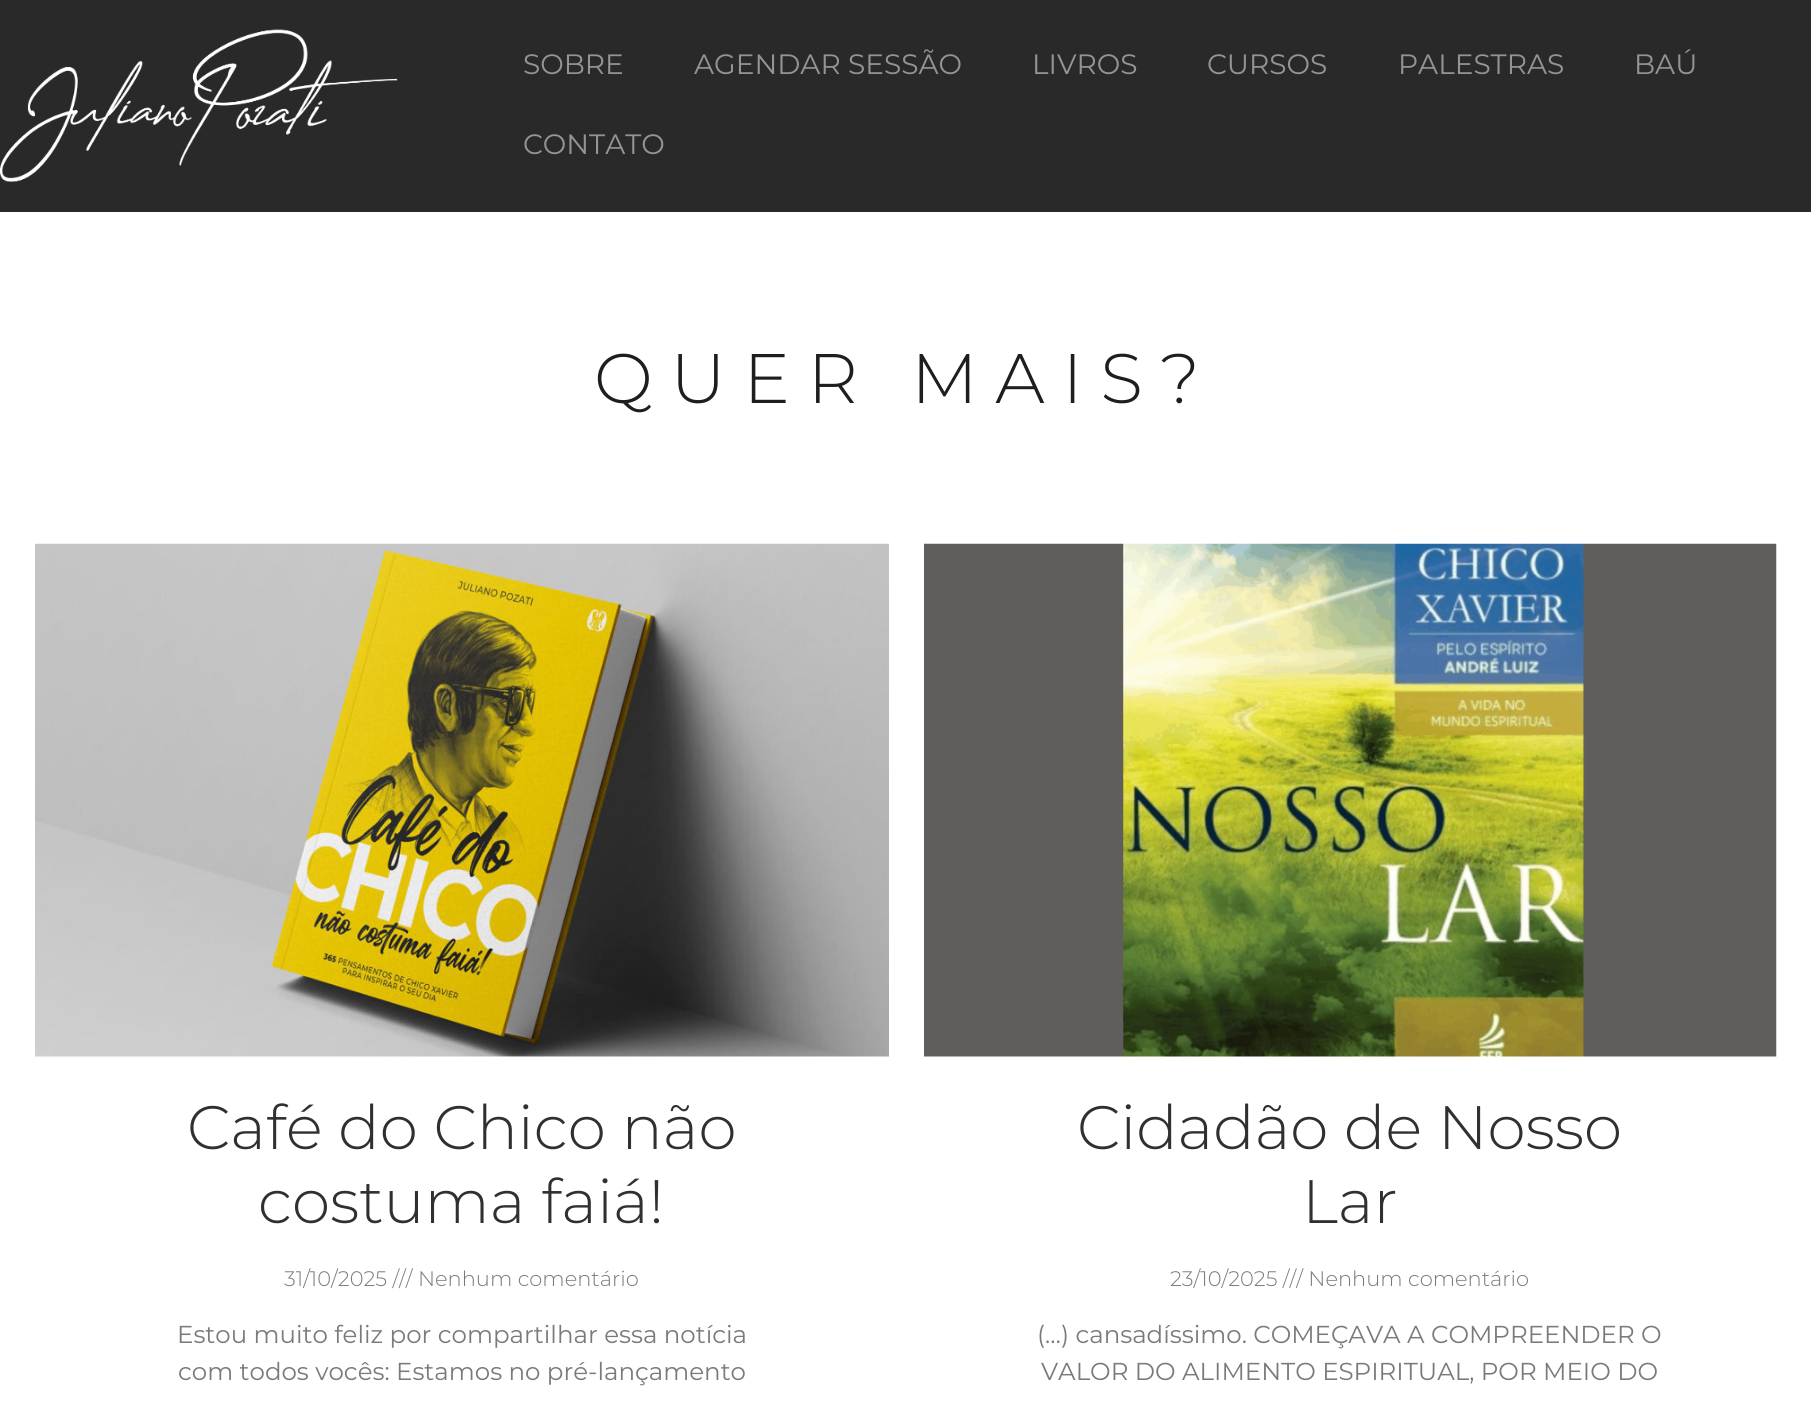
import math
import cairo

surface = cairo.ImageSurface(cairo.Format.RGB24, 1811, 1410)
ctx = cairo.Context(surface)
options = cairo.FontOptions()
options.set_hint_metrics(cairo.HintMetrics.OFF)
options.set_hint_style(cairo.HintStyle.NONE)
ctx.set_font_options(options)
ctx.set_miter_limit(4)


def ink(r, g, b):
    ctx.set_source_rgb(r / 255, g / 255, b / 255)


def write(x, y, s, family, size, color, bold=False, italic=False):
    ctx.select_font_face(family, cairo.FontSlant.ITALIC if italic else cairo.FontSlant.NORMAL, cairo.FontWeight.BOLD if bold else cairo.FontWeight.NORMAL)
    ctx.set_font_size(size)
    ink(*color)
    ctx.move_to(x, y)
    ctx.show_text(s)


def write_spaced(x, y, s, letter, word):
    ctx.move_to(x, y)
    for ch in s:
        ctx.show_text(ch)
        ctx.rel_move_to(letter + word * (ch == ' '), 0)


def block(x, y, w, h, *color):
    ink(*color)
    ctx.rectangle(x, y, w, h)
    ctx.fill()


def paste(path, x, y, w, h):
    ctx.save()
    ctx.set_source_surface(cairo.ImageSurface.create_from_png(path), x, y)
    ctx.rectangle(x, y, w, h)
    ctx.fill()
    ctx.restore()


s1 = dict(family="Montserrat", size=28, color=(148, 148, 148))
s2 = dict(family="Montserrat Light", size=61.25, color=(48, 48, 48))
s3 = dict(family="Montserrat Light", size=21, color=(122, 122, 122))
s4 = dict(family="Montserrat", size=24.5, color=(122, 122, 122))

ink(255, 255, 255)
ctx.paint()
block(0, 0, 1811, 212, 41, 41, 41)
paste("pic1.png", 0, 29, 398, 153)
write(523, 74, "SOBRE", **s1)
write(694, 74, "AGENDAR SESSÃO", **s1)
write(1032, 74, "LIVROS", **s1)
write(1207, 74, "CURSOS", **s1)
write(1398, 74, "PALESTRAS", **s1)
write(1634, 74, "BAÚ", **s1)
write(523, 154, "CONTATO", **s1)
ctx.select_font_face("Montserrat Light")
ctx.set_font_size(70)
ink(30, 30, 30)
write_spaced(594, 403, "QUER MAIS?", 17.5, 0)
paste("pic2.png", 35, 543, 854, 514)
write(187, 1149, "Café do Chico não", **s2)
write(258, 1223, "costuma faiá!", **s2)
write(284, 1286, "31/10/2025 /// Nenhum comentário", **s3)
write(177, 1343, "Estou muito feliz por compartilhar essa notícia", **s4)
write(178, 1380, "com todos vocês: Estamos no pré-lançamento", **s4)
paste("pic3.png", 924, 543, 853, 514)
write(1077, 1149, "Cidadão de Nosso", **s2)
write(1302, 1223, "Lar", **s2)
write(1170, 1286, "23/10/2025 /// Nenhum comentário", **s3)
write(1037, 1343, "(…) cansadíssimo. COMEÇAVA A COMPREENDER O", **s4)
write(1041, 1380, "VALOR DO ALIMENTO ESPIRITUAL, POR MEIO DO", **s4)
surface.write_to_png("screenshot.png")
